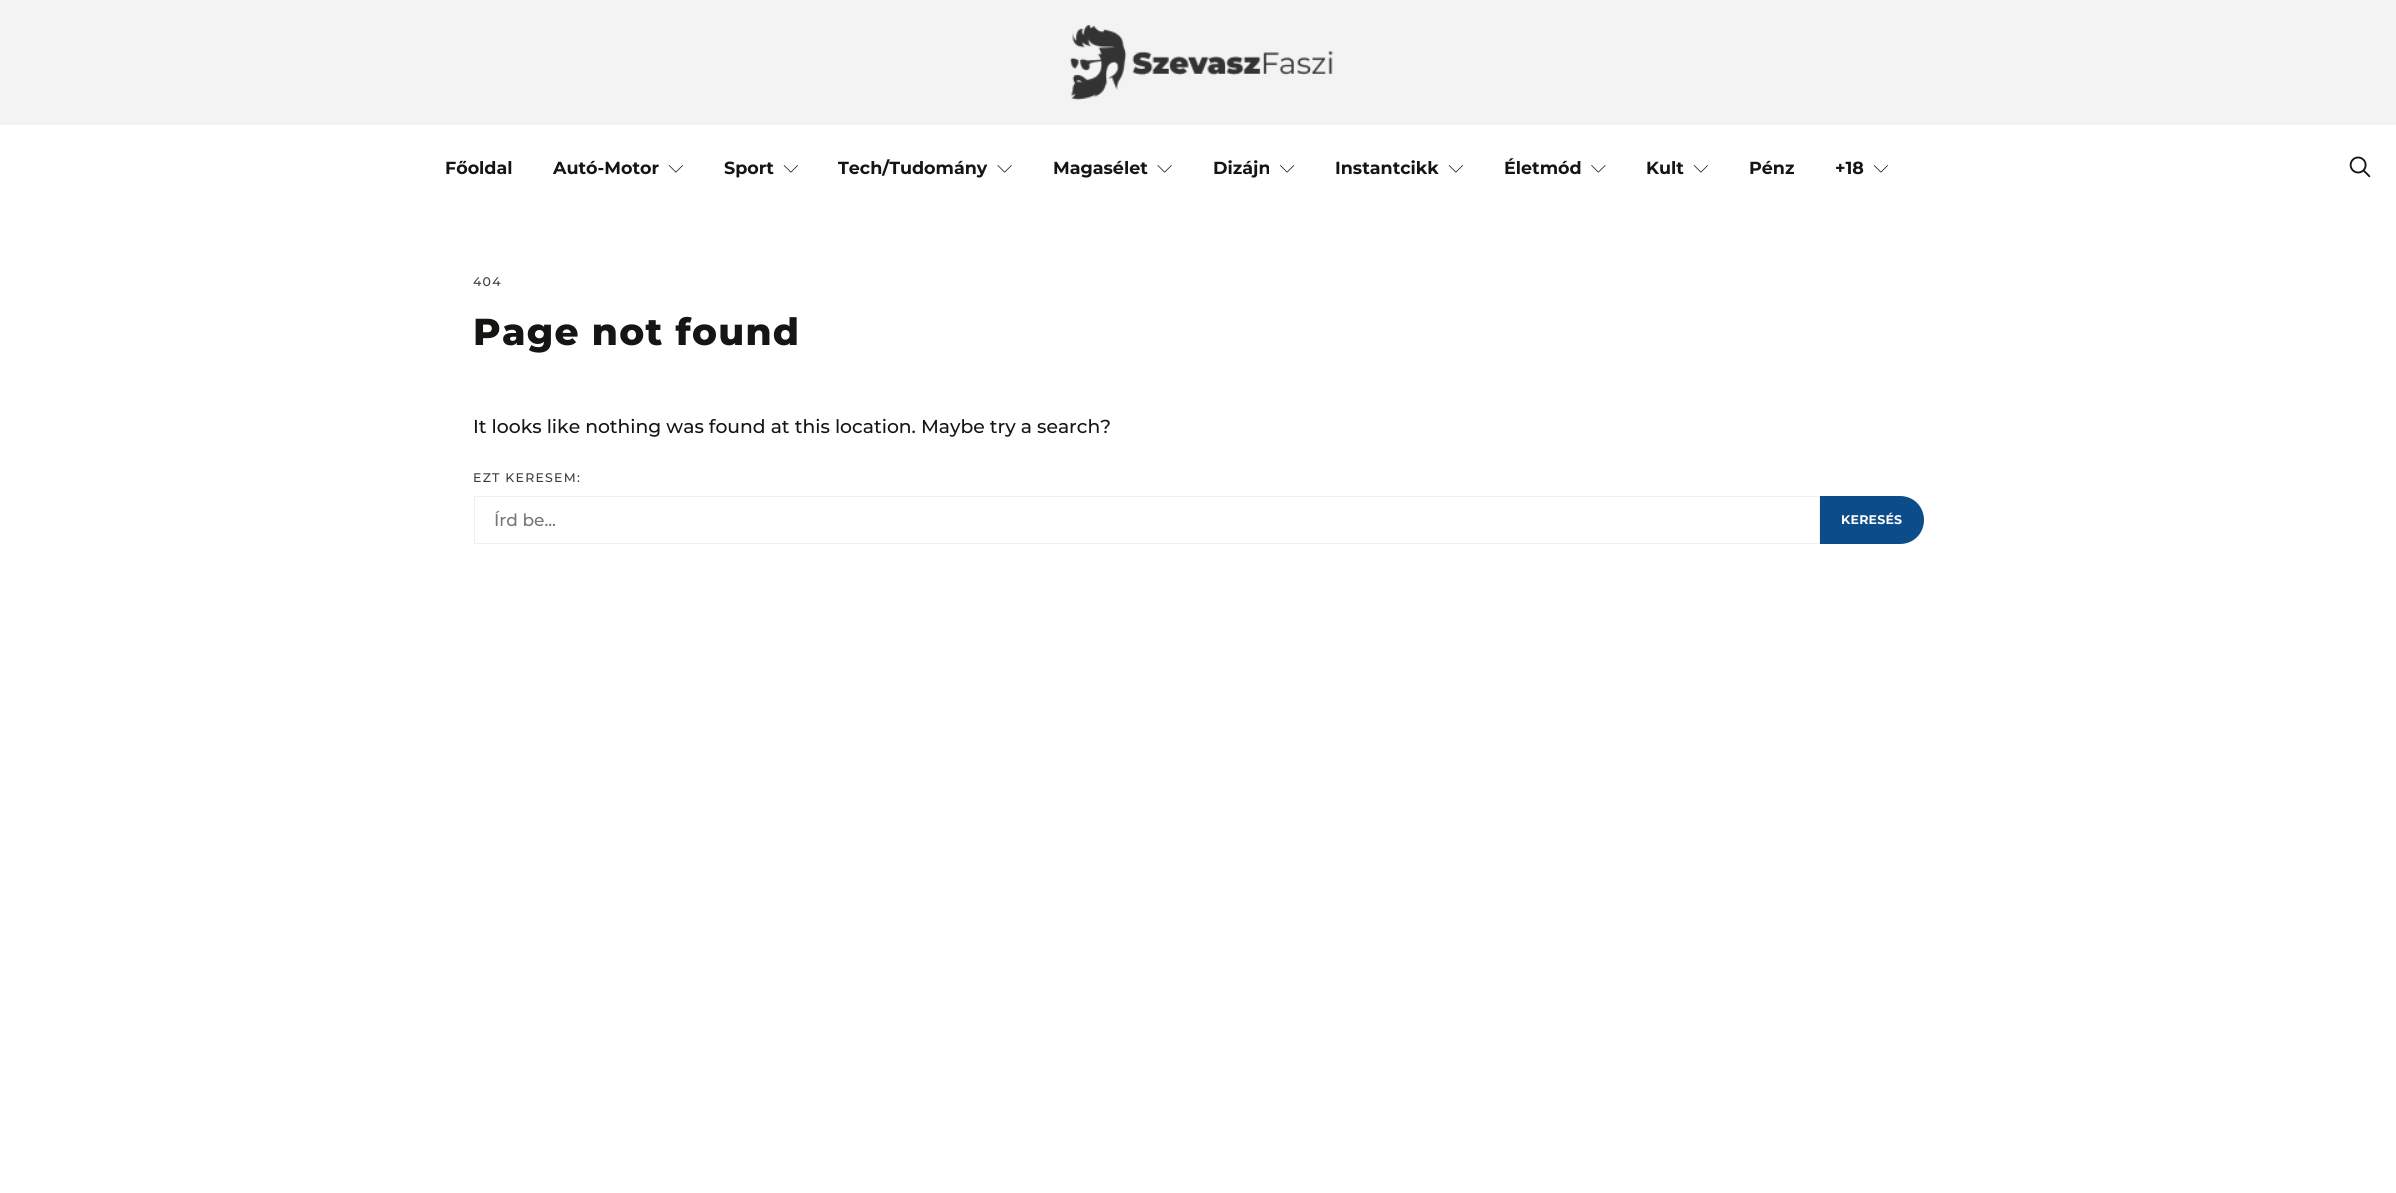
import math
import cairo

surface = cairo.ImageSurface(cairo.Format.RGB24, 2396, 1193)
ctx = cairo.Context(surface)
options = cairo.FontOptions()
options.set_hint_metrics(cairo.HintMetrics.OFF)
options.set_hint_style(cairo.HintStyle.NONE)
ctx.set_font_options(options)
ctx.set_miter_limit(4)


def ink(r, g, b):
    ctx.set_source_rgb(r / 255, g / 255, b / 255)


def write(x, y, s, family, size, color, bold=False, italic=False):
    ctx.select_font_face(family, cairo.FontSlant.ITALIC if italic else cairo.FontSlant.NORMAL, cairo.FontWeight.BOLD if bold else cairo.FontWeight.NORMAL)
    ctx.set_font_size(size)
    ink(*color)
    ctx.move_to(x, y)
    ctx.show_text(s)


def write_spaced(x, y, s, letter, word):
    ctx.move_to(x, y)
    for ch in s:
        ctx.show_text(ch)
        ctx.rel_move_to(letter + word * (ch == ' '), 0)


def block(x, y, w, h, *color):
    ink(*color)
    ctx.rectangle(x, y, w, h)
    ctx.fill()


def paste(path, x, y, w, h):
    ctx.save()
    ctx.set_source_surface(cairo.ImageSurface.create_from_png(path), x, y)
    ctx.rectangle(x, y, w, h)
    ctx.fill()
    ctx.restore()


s1 = dict(family="Montserrat", size=17.5, color=(21, 21, 20), bold=True)
s2 = dict(family="Montserrat Medium", size=18.75, color=(21, 21, 20))
s3 = dict(family="Montserrat Medium", size=17, color=(117, 117, 117))

ink(255, 255, 255)
ctx.paint()
block(0, 0, 2396, 125, 242, 243, 242)
paste("pic1.png", 1070, 25, 263, 75)
write(445, 174, "Főoldal", **s1)
write(553, 174, "Autó-Motor", **s1)
paste("pic2.png", 668, 165, 15, 8)
write(724, 174, "Sport", **s1)
paste("pic2.png", 783, 165, 15, 8)
write(838, 174, "Tech/Tudomány", **s1)
paste("pic3.png", 997, 165, 15, 8)
write(1053, 174, "Magasélet", **s1)
paste("pic3.png", 1157, 165, 15, 8)
write(1213, 174, "Dizájn", **s1)
paste("pic4.png", 1280, 165, 15, 8)
write(1335, 174, "Instantcikk", **s1)
paste("pic2.png", 1448, 165, 15, 8)
write(1504, 174, "Életmód", **s1)
paste("pic5.png", 1591, 165, 15, 8)
write(1646, 174, "Kult", **s1)
paste("pic2.png", 1693, 165, 15, 8)
write(1749, 174, "Pénz", **s1)
write(1835, 174, "+18", **s1)
paste("pic2.png", 1873, 165, 15, 8)
paste("pic6.png", 2349, 156, 22, 22)
ctx.select_font_face("Montserrat Medium")
ctx.set_font_size(12.5)
ink(62, 62, 60)
write_spaced(473, 286, "404", 1.25, 0)
ctx.select_font_face("Montserrat ExtraBold")
ctx.set_font_size(37.5)
ink(21, 21, 20)
write_spaced(473, 345, "Page not found", 1.25, 0)
write(473, 433, "It looks like nothing was found at this location. Maybe try a search?", **s2)
ctx.set_font_size(12.5)
ink(62, 62, 60)
write_spaced(473, 482, "EZT KERESEM:", 1.25, 0)
ctx.rectangle(474.5, 496.5, 1345, 47)
ink(238, 238, 238)
ctx.set_line_width(1)
ctx.stroke()
write(494, 526, "Írd be...", **s3)
ink(12, 76, 138)
ctx.new_path()
ctx.move_to(1820, 496)
ctx.line_to(1900, 496)
ctx.curve_to(1913.5, 496, 1924, 506.5, 1924, 520)
ctx.curve_to(1924, 533.5, 1913.5, 544, 1900, 544)
ctx.line_to(1820, 544)
ctx.close_path()
ctx.fill()
ctx.select_font_face("Montserrat", cairo.FontSlant.NORMAL, cairo.FontWeight.BOLD)
ctx.set_font_size(12.5)
ink(255, 255, 255)
write_spaced(1841, 524, "KERESÉS", 0.25, 0)
surface.write_to_png("screenshot.png")
